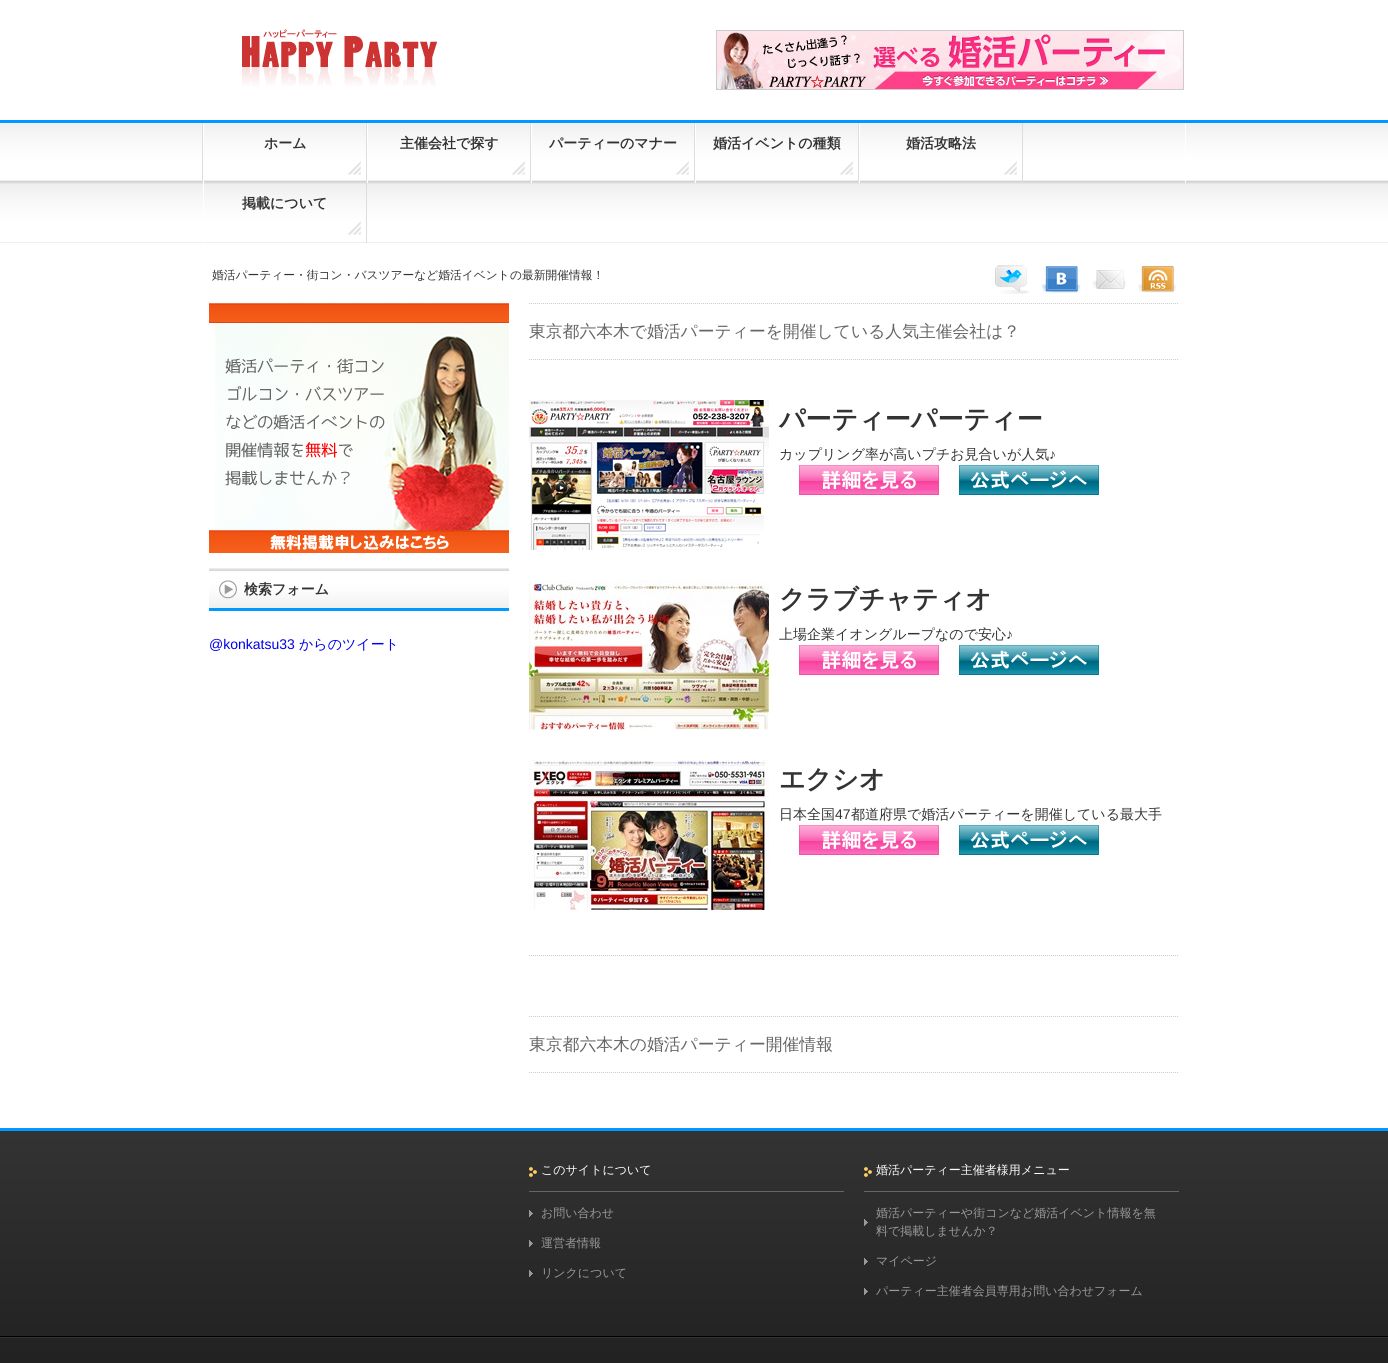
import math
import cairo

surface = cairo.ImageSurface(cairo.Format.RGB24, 1388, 1363)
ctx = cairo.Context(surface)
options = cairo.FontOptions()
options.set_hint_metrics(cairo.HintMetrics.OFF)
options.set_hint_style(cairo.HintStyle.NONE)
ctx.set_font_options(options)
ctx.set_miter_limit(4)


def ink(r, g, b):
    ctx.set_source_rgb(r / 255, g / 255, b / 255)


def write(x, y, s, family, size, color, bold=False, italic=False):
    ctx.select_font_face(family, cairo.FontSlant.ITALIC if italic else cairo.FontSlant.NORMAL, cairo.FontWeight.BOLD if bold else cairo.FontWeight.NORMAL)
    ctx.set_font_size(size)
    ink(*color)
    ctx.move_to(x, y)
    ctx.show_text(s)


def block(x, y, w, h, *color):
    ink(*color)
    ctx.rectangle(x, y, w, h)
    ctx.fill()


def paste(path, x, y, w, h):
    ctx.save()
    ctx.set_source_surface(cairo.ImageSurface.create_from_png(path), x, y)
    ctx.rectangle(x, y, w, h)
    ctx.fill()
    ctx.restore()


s1 = dict(family="WenQuanYi Zen Hei", size=14, color=(51, 51, 51), bold=True)
s2 = dict(family="WenQuanYi Zen Hei Medium", size=11.75, color=(51, 51, 51))
s3 = dict(family="Liberation Sans", size=14, color=(0, 0, 238))
s4 = dict(family="WenQuanYi Zen Hei Medium", size=14, color=(0, 0, 238))
s5 = dict(family="WenQuanYi Zen Hei Medium", size=16.8, color=(102, 102, 102))
s6 = dict(family="WenQuanYi Zen Hei", size=26, color=(51, 51, 51), bold=True)
s7 = dict(family="WenQuanYi Zen Hei Medium", size=14, color=(51, 51, 51))
s8 = dict(family="Liberation Sans", size=14, color=(51, 51, 51))
s9 = dict(family="WenQuanYi Zen Hei Medium", size=12, color=(255, 255, 255))
s10 = dict(family="WenQuanYi Zen Hei Medium", size=12, color=(153, 153, 153))

ink(255, 255, 255)
ctx.paint()
paste("pic1.png", 242, 29, 195, 57)
paste("pic2.png", 716, 30, 468, 60)
block(0, 120, 1388, 3, 0, 153, 255)
paste("pic3.png", 0, 123, 1388, 120)
block(1185, 123, 1, 60, 255, 255, 255)
block(202, 123, 1, 60, 221, 221, 221)
paste("pic4.png", 347, 161, 14, 14)
block(366, 123, 1, 120, 221, 221, 221)
block(203, 123, 1, 120, 255, 255, 255)
write(264, 148, "ホーム", **s1)
paste("pic4.png", 511, 161, 14, 14)
block(530, 123, 1, 60, 221, 221, 221)
block(367, 123, 1, 60, 255, 255, 255)
write(400, 148, "主催会社で探す", **s1)
paste("pic4.png", 675, 161, 14, 14)
block(694, 123, 1, 60, 221, 221, 221)
block(531, 123, 1, 60, 255, 255, 255)
write(549, 148, "パーティーのマナー", **s1)
paste("pic4.png", 839, 161, 14, 14)
block(858, 123, 1, 60, 221, 221, 221)
block(695, 123, 1, 60, 255, 255, 255)
write(713, 148, "婚活イベントの種類", **s1)
paste("pic4.png", 1003, 161, 14, 14)
block(1022, 123, 1, 60, 221, 221, 221)
block(859, 123, 1, 60, 255, 255, 255)
write(906, 148, "婚活攻略法", **s1)
paste("pic5.png", 347, 221, 14, 14)
write(242, 208, "掲載について", **s1)
write(212, 279, "婚活パーティー・街コン・バスツアーなど婚活イベントの最新開催情報！", **s2)
paste("pic6.png", 995, 265, 34, 29)
paste("pic7.png", 1041, 266, 40, 28)
paste("pic8.png", 1092, 270, 34, 19)
paste("pic9.png", 1138, 266, 38, 27)
paste("pic10.png", 209, 303, 300, 250)
paste("pic11.png", 209, 568, 300, 40)
block(209, 608, 300, 3, 0, 153, 255)
write(244, 594, "検索フォーム", **s1)
write(209, 649, "@konkatsu33", **s3)
write(299, 649, "からのツイート", **s4)
ctx.new_path()
ctx.move_to(529, 303.5)
ctx.line_to(1179, 303.5)
ink(204, 204, 204)
ctx.set_line_width(1)
ctx.set_dash([1, 1])
ctx.stroke()
ctx.new_path()
ctx.move_to(529, 359.5)
ctx.line_to(1179, 359.5)
ctx.stroke()
write(529, 337, "東京都六本木で婚活パーティーを開催している人気主催会社は？", **s5)
ctx.new_path()
ctx.move_to(529, 955.5)
ctx.line_to(1179, 955.5)
ink(204, 204, 204)
ctx.stroke()
paste("pic12.png", 529, 400, 240, 150)
write(779, 428, "パーティーパーティー", **s6)
write(779, 459, "カップリング率が高いプチお見合いが人気", **s7)
write(1049, 459, "♪", **s8)
paste("pic13.png", 799, 465, 140, 30)
paste("pic14.png", 959, 465, 140, 30)
paste("pic15.png", 529, 580, 240, 150)
write(779, 608, "クラブチャティオ", **s6)
write(779, 639, "上場企業イオングループなので安心", **s7)
write(1006, 639, "♪", **s8)
paste("pic13.png", 799, 645, 140, 30)
paste("pic14.png", 959, 645, 140, 30)
paste("pic16.png", 529, 760, 240, 150)
write(779, 788, "エクシオ", **s6)
write(779, 819, "日本全国", **s7)
write(835, 819, "47", **s8)
write(851, 819, "都道府県で婚活パーティーを開催している最大手", **s7)
paste("pic13.png", 799, 825, 140, 30)
paste("pic14.png", 959, 825, 140, 30)
ctx.new_path()
ctx.move_to(529, 1016.5)
ctx.line_to(1179, 1016.5)
ink(204, 204, 204)
ctx.stroke()
ctx.new_path()
ctx.move_to(529, 1072.5)
ctx.line_to(1179, 1072.5)
ctx.stroke()
write(529, 1050, "東京都六本木の婚活パーティー開催情報", **s5)
gradient = cairo.LinearGradient(694, 1131, 694, 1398)
gradient.add_color_stop_rgba(0, 0.2, 0.2, 0.2, 1)
gradient.add_color_stop_rgba(1, 0.122, 0.122, 0.122, 1)
ctx.set_source(gradient)
ctx.rectangle(0, 1131, 1388, 232)
ctx.fill()
block(0, 1128, 1388, 3, 0, 153, 255)
paste("pic17.png", 529, 1167, 8, 10)
block(529, 1191, 315, 1, 102, 102, 102)
write(541, 1174, "このサイトについて", **s9)
paste("pic18.png", 529, 1210, 4, 7)
write(541, 1217, "お問い合わせ", **s10)
paste("pic19.png", 529, 1240, 4, 7)
write(541, 1247, "運営者情報", **s10)
paste("pic20.png", 529, 1270, 4, 7)
write(541, 1277, "リンクについて", **s10)
paste("pic17.png", 864, 1167, 8, 10)
block(864, 1191, 315, 1, 102, 102, 102)
write(876, 1174, "婚活パーティー主催者様用メニュー", **s9)
paste("pic21.png", 864, 1219, 4, 7)
write(876, 1217, "婚活パーティーや街コンなど婚活イベント情報を無", **s10)
write(876, 1235, "料で掲載しませんか？", **s10)
paste("pic22.png", 864, 1258, 4, 7)
write(876, 1265, "マイページ", **s10)
paste("pic23.png", 864, 1288, 4, 7)
write(876, 1295, "パーティー主催者会員専用お問い合わせフォーム", **s10)
block(0, 1336, 1388, 1, 0, 0, 0)
block(0, 1337, 1388, 1, 51, 51, 51)
surface.write_to_png("screenshot.png")
